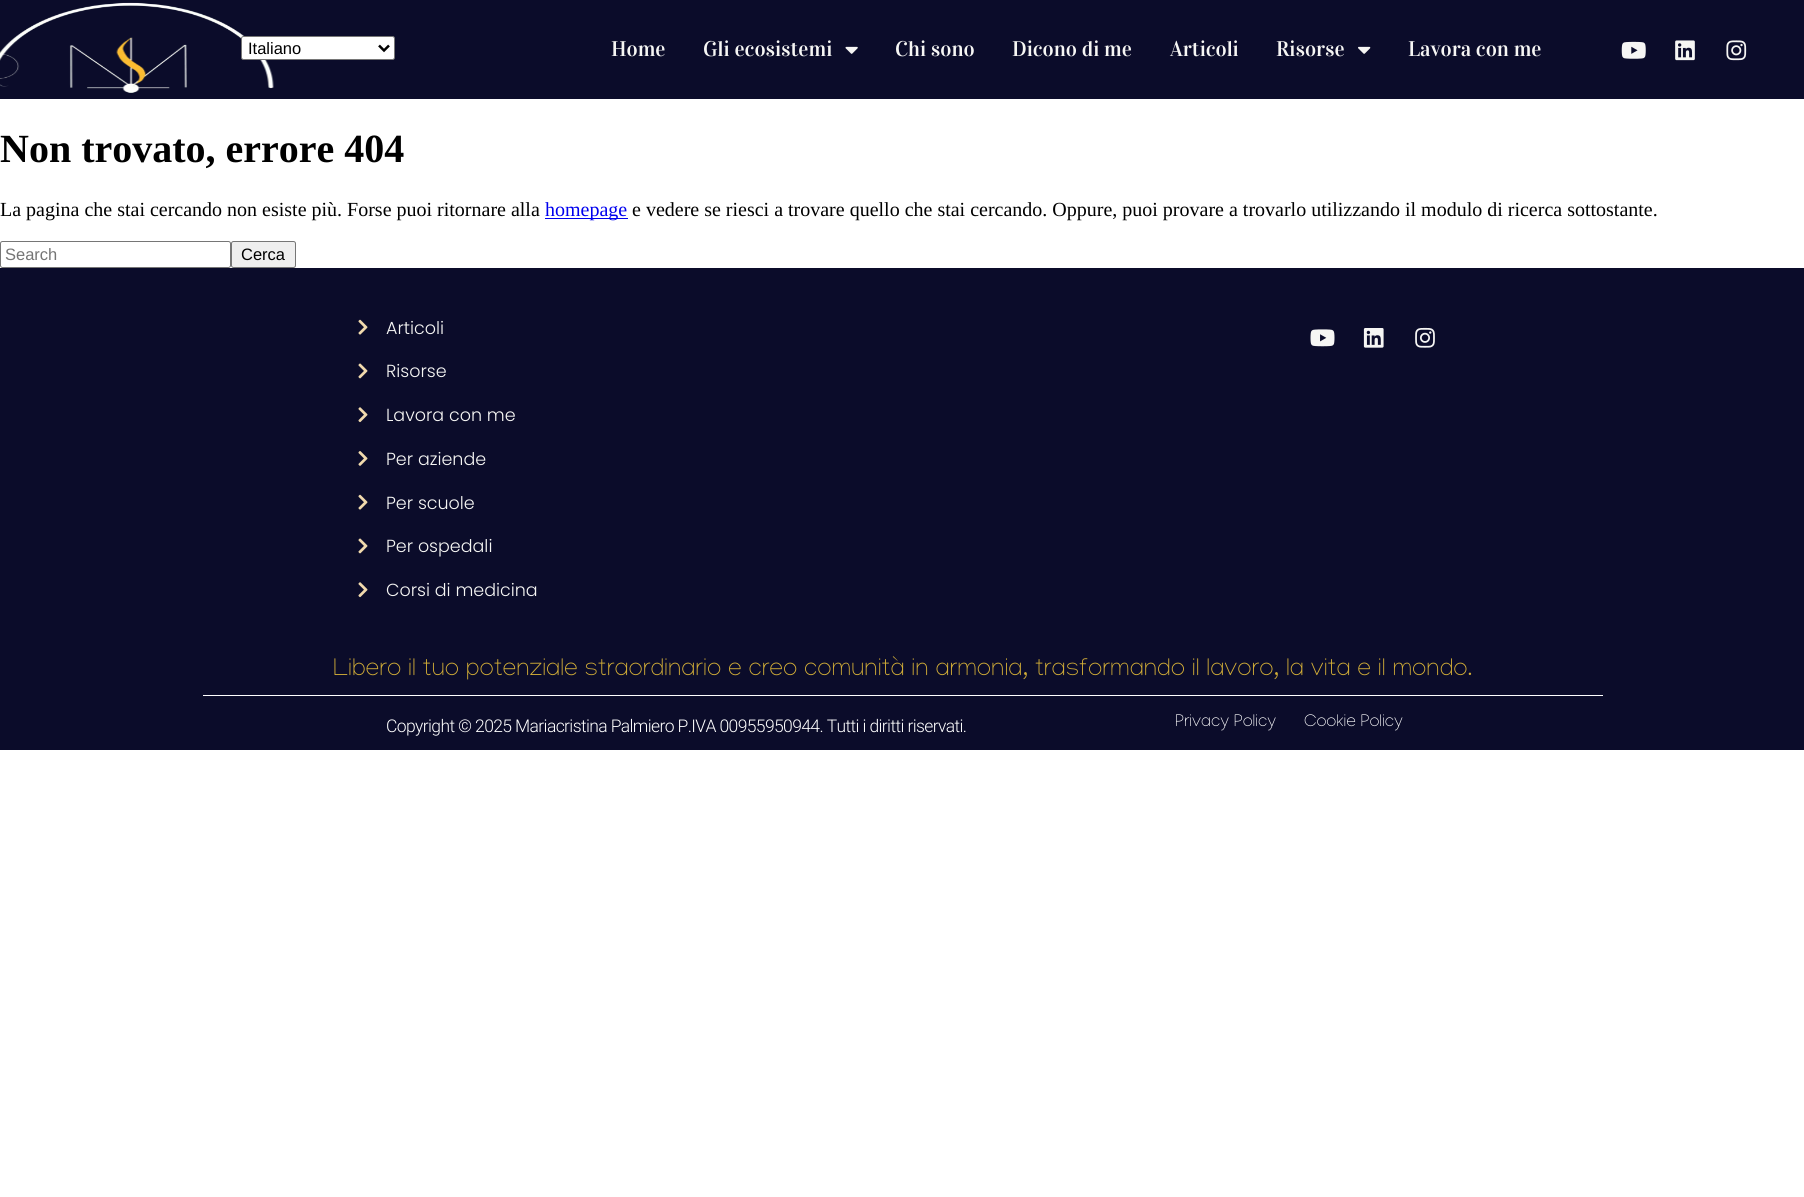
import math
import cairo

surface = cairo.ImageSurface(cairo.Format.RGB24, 1804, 1197)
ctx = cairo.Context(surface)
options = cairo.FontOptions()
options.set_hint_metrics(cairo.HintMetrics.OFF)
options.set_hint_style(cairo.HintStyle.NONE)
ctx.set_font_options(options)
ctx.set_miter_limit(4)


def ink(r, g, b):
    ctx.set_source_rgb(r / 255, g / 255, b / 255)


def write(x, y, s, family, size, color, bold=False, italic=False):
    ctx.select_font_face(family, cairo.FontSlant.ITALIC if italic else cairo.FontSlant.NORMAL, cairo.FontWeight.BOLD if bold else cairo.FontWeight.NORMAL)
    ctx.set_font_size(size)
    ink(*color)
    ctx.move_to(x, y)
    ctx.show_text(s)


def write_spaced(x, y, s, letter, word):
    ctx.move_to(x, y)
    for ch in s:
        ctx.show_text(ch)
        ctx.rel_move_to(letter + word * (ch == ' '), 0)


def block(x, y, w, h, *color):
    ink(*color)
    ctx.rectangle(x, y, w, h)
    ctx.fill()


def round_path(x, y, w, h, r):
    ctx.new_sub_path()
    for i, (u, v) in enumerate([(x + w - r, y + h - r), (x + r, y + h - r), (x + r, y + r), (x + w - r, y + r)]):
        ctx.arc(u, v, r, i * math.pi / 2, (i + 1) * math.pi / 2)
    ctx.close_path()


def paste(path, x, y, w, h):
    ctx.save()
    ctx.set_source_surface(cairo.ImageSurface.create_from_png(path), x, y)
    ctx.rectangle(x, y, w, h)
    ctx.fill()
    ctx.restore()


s1 = dict(family="Liberation Sans", size=16.5, color=(0, 0, 0))
s2 = dict(family="Vidaloka", size=21.25, color=(246, 246, 244))
s3 = dict(family="Liberation Serif", size=40, color=(0, 0, 0), bold=True)
s4 = dict(family="Liberation Serif", size=20, color=(0, 0, 0))
s5 = dict(family="Liberation Serif", size=20, color=(0, 0, 238))
s6 = dict(family="Liberation Sans", size=16.5, color=(117, 117, 117))
s7 = dict(family="Poppins Light", size=17.5, color=(246, 246, 244))
s8 = dict(family="Manjari Thin", size=25, color=(212, 175, 55))
s9 = dict(family="Manjari Thin", size=17.5, color=(255, 255, 255))

ink(255, 255, 255)
ctx.paint()
block(0, 0, 1804, 99, 11, 12, 42)
paste("pic1.png", 0, 2, 274, 91)
ink(255, 255, 255)
round_path(241.5, 36.5, 153, 23, 2)
ctx.fill_preserve()
ink(118, 118, 118)
ctx.set_line_width(1)
ctx.stroke()
ctx.new_path()
ctx.move_to(379, 45.5)
ctx.line_to(384, 50.5)
ctx.line_to(389, 45.5)
ink(0, 0, 0)
ctx.set_line_width(2.5)
ctx.stroke()
write(248, 54, "Italiano", **s1)
write(611, 56, "Home", **s2)
write(703, 56, "Gli ecosistemi", **s2)
paste("pic2.png", 845, 46, 13, 8)
write(895, 56, "Chi sono", **s2)
write(1012, 56, "Dicono di me", **s2)
write(1170, 56, "Articoli", **s2)
write(1276, 56, "Risorse", **s2)
paste("pic3.png", 1358, 46, 13, 8)
write(1408, 56, "Lavora con me", **s2)
paste("pic4.png", 1621, 41, 25, 18)
paste("pic5.png", 1675, 40, 20, 21)
paste("pic6.png", 1726, 40, 21, 21)
write(0, 162, "Non trovato, errore 404", **s3)
write(0, 216, "La pagina che stai cercando non esiste più. Forse puoi ritornare alla", **s4)
block(545, 218, 83, 1, 0, 0, 238)
write(545, 216, "homepage", **s5)
write(632, 216, "e vedere se riesci a trovare quello che stai cercando. Oppure, puoi provare a trovarlo utilizzando il modulo di ricerca sottostante.", **s4)
round_path(0.5, 241.5, 230, 26, 2)
ink(118, 118, 118)
ctx.set_line_width(1)
ctx.stroke()
write(5, 260, "Search", **s6)
ink(239, 239, 239)
round_path(231.5, 241.5, 64, 26, 2)
ctx.fill_preserve()
ink(118, 118, 118)
ctx.stroke()
write(241, 260, "Cerca", **s1)
block(0, 268, 1804, 482, 11, 12, 42)
paste("pic7.png", 358, 319, 10, 16)
write(386, 334, "Articoli", **s7)
paste("pic8.png", 358, 363, 10, 16)
write(386, 377, "Risorse", **s7)
paste("pic9.png", 358, 407, 10, 16)
write(386, 421, "Lavora con me", **s7)
paste("pic10.png", 358, 451, 10, 15)
write(386, 465, "Per aziende", **s7)
paste("pic7.png", 358, 494, 10, 16)
write(386, 509, "Per scuole", **s7)
paste("pic8.png", 358, 538, 10, 16)
write(386, 552, "Per ospedali", **s7)
paste("pic9.png", 358, 582, 10, 16)
write(386, 596, "Corsi di medicina", **s7)
paste("pic11.png", 1310, 329, 25, 18)
paste("pic12.png", 1363, 328, 21, 20)
paste("pic13.png", 1415, 327, 20, 21)
write(333, 675, "Libero il tuo potenziale straordinario e creo comunità in armonia, trasformando il lavoro, la vita e il mondo.", **s8)
block(203, 695, 1400, 1, 255, 255, 255)
ctx.select_font_face("Roboto Light")
ctx.set_font_size(17.5)
write_spaced(386, 732, "Copyright © 2025 Mariacristina Palmiero P.IVA 00955950944. Tutti i diritti riservati.", -0.62, 0)
write(1175, 726, "Privacy Policy", **s9)
write(1304, 726, "Cookie Policy", **s9)
surface.write_to_png("screenshot.png")
